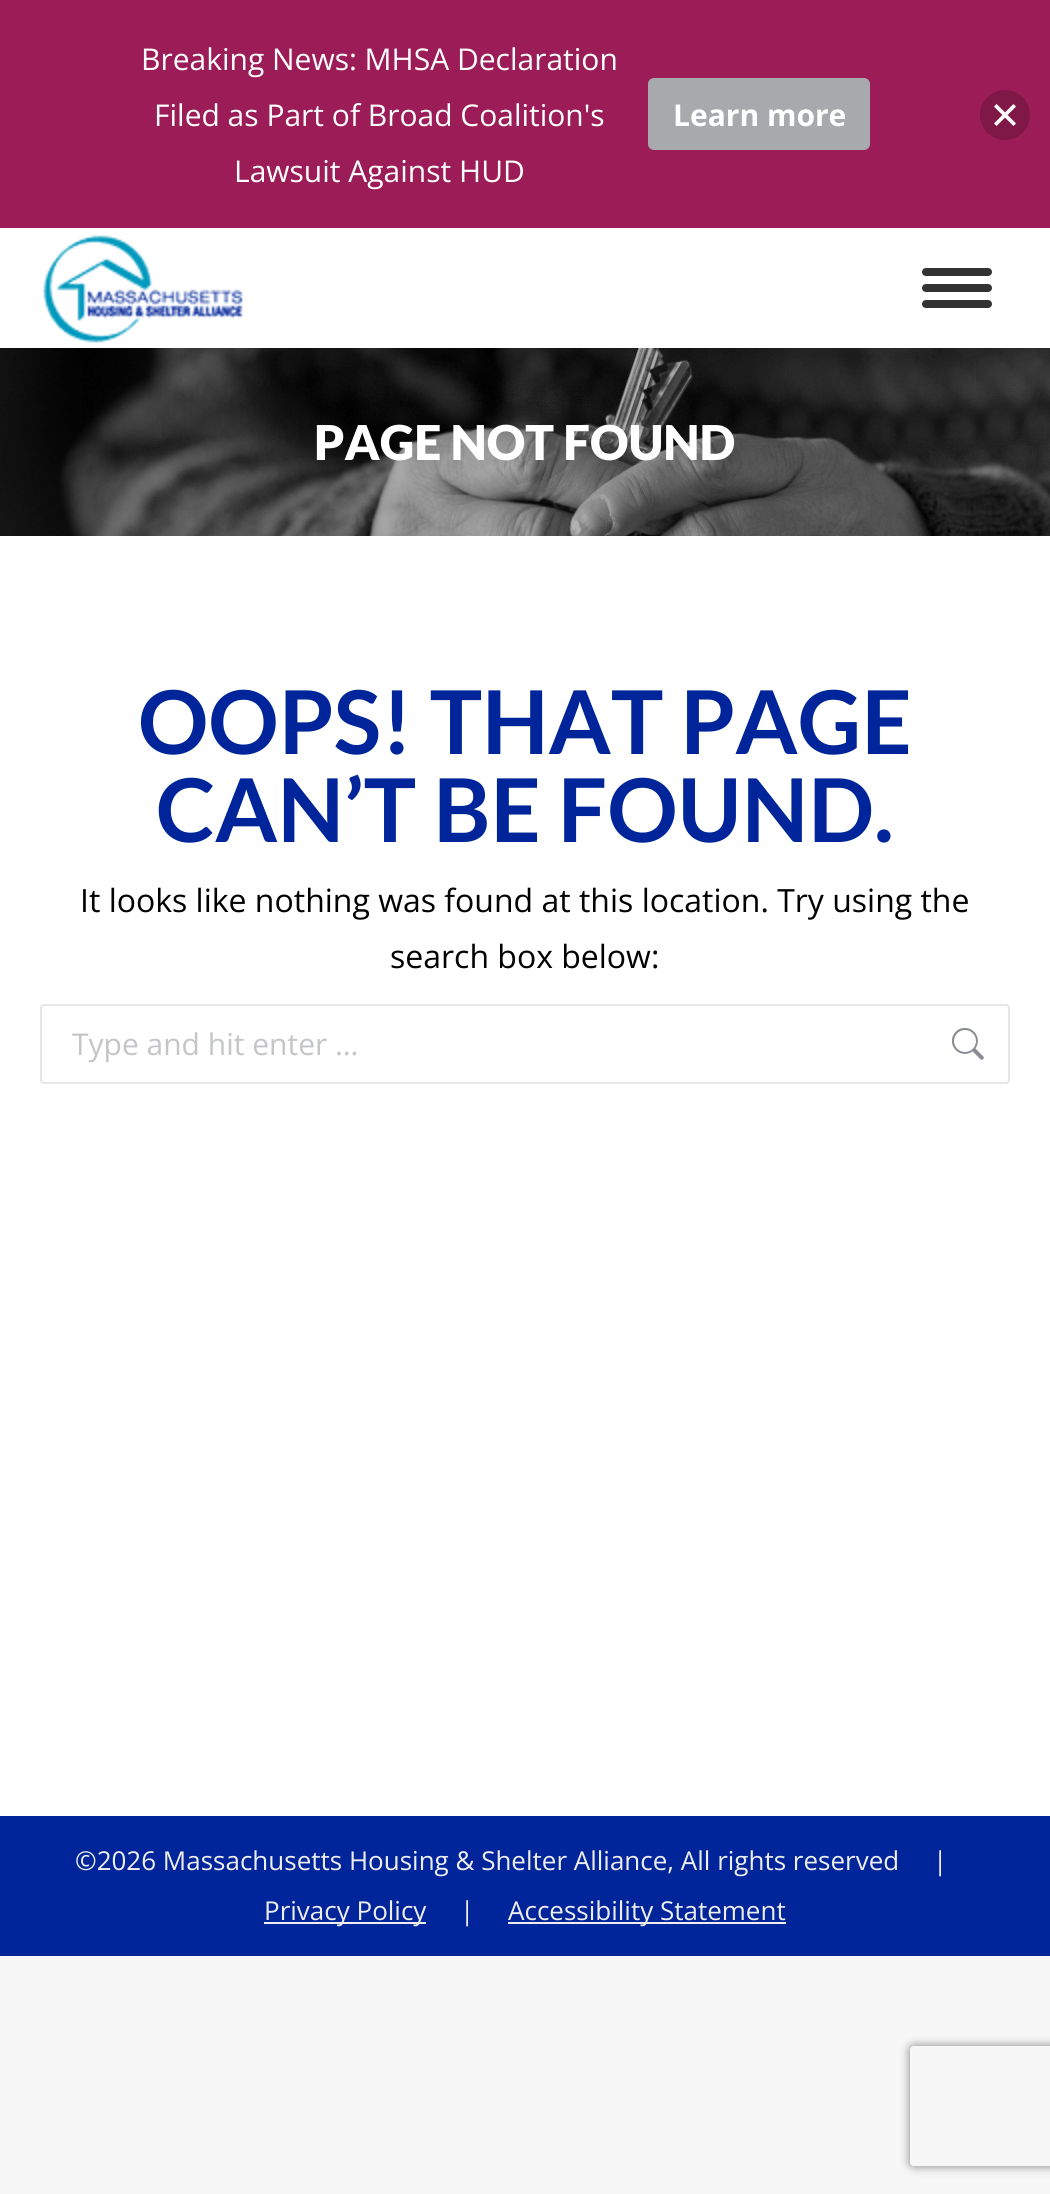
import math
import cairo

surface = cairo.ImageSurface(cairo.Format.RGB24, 1050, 2194)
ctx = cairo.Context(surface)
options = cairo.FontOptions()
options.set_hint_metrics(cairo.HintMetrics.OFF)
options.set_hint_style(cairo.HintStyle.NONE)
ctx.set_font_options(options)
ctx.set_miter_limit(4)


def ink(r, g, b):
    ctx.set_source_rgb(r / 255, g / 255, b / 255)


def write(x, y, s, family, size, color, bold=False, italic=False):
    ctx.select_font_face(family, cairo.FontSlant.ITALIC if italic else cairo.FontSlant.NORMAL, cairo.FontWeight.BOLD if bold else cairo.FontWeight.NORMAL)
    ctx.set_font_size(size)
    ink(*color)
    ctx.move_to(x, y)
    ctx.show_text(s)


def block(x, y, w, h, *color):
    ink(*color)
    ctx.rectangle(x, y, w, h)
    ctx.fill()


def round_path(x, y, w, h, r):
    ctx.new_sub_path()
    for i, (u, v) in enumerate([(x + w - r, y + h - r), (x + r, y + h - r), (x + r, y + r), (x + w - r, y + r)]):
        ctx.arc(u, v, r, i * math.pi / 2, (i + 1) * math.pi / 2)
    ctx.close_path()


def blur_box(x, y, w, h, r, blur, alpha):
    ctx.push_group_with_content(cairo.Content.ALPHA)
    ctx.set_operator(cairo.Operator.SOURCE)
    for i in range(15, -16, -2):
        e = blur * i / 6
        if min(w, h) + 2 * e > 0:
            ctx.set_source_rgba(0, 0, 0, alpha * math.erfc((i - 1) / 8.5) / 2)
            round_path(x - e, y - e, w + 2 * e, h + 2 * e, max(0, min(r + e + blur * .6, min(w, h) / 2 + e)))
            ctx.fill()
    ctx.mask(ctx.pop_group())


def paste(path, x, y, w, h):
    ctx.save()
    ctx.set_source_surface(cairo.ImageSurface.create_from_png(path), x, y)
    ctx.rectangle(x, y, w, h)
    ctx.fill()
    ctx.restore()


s1 = dict(family="Open Sans", size=30, color=(255, 255, 255))
s2 = dict(family="Open Sans", size=30, color=(255, 255, 255), bold=True)
s3 = dict(family="Lato Black", size=48, color=(255, 255, 255))
s4 = dict(family="Lato", size=88, color=(0, 37, 154), bold=True)
s5 = dict(family="Open Sans", size=32, color=(0, 0, 0))
s6 = dict(family="Open Sans", size=30, color=(196, 197, 201))
s7 = dict(family="Open Sans", size=26, color=(238, 238, 238))

ink(247, 247, 247)
ctx.paint()
block(0, 0, 1050, 228, 155, 28, 86)
write(141, 70, "Breaking News: MHSA Declaration", **s1)
write(154, 126, "Filed as Part of Broad Coalition's", **s1)
write(234, 182, "Lawsuit Against HUD", **s1)
ink(167, 169, 172)
round_path(648, 78, 222, 72, 6)
ctx.fill()
write(673, 126, "Learn more", **s2)
ink(127, 23, 71)
ctx.new_path()
ctx.arc(1005, 115, 25, 0, 2 * math.pi)
ctx.fill()
paste("pic1.png", 994, 104, 22, 22)
block(0, 228, 1050, 1588, 255, 255, 255)
paste("pic2.png", 43, 235, 200, 108)
ink(51, 51, 51)
round_path(922, 268, 70, 8, 4)
ctx.fill()
round_path(922, 284, 70, 8, 4)
ctx.fill()
round_path(922, 300, 70, 8, 4)
ctx.fill()
paste("pic3.png", 0, 348, 1050, 188)
write(314, 460, "PAGE NOT FOUND", **s3)
write(138, 754, "OOPS! THAT PAGE", **s4)
write(156, 842, "CAN’T BE FOUND.", **s4)
write(80, 912, "It looks like nothing was found at this location. Try using the", **s5)
write(390, 968, "search box below:", **s5)
round_path(41, 1005, 968, 78, 3)
ink(231, 231, 231)
ctx.stroke()
write(72, 1055, "Type and hit enter …", **s6)
paste("pic4.png", 952, 1028, 32, 32)
block(0, 1816, 1050, 140, 0, 37, 154)
write(75, 1870, "©2026 Massachusetts Housing & Shelter Alliance, All rights reserved     |", **s7)
block(264, 1922, 162, 2, 238, 238, 238)
write(264, 1920, "Privacy Policy", **s7)
write(460, 1920, "|", **s7)
block(508, 1922, 278, 2, 238, 238, 238)
write(508, 1920, "Accessibility Statement", **s7)
ctx.save()
ctx.set_fill_rule(cairo.FillRule.EVEN_ODD)
ctx.new_path()
ctx.move_to(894, 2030)
ctx.line_to(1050, 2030)
ctx.line_to(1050, 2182)
ctx.line_to(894, 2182)
ctx.close_path()
ctx.move_to(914, 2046)
ctx.line_to(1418, 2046)
ctx.curve_to(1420, 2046, 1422, 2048, 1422, 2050)
ctx.line_to(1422, 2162)
ctx.curve_to(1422, 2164, 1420, 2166, 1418, 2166)
ctx.line_to(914, 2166)
ctx.curve_to(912, 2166, 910, 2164, 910, 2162)
ctx.line_to(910, 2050)
ctx.curve_to(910, 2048, 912, 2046, 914, 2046)
ctx.close_path()
ctx.clip()
ink(128, 128, 128)
blur_box(910, 2046, 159, 120, 4, 5, 1)
ctx.restore()
surface.write_to_png("screenshot.png")
